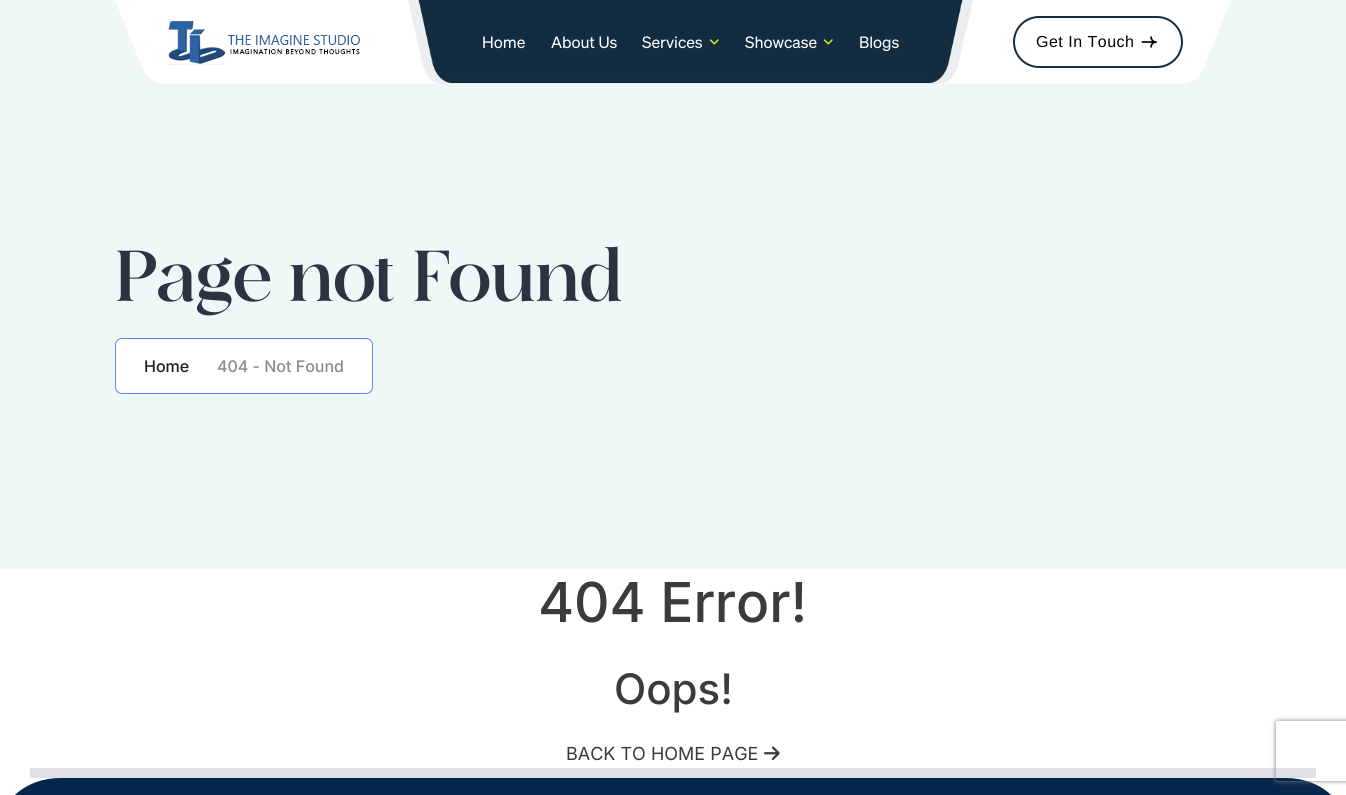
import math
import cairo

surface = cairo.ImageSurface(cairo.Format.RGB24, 1346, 795)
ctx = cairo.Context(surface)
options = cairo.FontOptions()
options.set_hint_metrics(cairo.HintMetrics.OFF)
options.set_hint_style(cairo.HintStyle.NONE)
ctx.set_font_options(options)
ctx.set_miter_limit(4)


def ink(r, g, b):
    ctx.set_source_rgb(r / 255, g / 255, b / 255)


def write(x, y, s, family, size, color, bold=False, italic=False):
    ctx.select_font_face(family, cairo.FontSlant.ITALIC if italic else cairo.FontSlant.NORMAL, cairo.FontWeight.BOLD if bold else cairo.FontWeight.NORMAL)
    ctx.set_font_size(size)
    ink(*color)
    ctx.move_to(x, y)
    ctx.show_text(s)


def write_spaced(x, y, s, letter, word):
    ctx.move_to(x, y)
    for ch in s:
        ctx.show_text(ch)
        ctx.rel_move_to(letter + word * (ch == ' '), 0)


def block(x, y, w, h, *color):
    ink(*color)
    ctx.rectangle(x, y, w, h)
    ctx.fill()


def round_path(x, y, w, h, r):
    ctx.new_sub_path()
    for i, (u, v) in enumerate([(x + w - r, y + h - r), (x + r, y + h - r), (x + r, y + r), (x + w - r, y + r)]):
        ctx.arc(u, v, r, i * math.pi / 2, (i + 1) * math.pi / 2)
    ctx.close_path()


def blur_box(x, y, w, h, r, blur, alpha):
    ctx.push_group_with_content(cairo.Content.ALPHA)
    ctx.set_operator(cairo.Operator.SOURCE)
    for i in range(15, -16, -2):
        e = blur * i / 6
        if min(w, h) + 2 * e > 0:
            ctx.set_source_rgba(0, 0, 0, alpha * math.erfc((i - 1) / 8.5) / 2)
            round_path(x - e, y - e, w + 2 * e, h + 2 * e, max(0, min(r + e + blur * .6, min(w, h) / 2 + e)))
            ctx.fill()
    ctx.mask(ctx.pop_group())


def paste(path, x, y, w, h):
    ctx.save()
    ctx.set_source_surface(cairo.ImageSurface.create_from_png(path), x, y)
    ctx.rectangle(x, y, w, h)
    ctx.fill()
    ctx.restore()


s1 = dict(family="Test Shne", size=16, color=(255, 255, 255))
s2 = dict(family="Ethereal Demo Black", size=72, color=(42, 52, 66))
s3 = dict(family="Inter Medium", size=16, color=(32, 32, 32))
s4 = dict(family="Inter Medium", size=16, color=(139, 139, 139))
s5 = dict(family="Inter Medium", size=55, color=(59, 59, 59))
s6 = dict(family="Inter Medium", size=42, color=(59, 59, 59))
s7 = dict(family="Inter", size=18, color=(59, 59, 59))

ink(255, 255, 255)
ctx.paint()
block(0, 0, 1346, 569, 240, 247, 247)
paste("pic1.png", 115, 0, 1116, 84)
paste("pic2.png", 168, 21, 192, 44)
paste("pic3.png", 408, 0, 565, 84)
write(482, 48, "Home", **s1)
write(551, 48, "About Us", **s1)
write(642, 48, "Services", **s1)
paste("pic4.png", 709, 39, 10, 6)
write(745, 48, "Showcase", **s1)
paste("pic4.png", 823, 39, 10, 6)
write(859, 48, "Blogs", **s1)
round_path(1014, 17, 168, 50, 25)
ink(18, 44, 65)
ctx.stroke()
ctx.select_font_face("Liberation Sans")
ink(0, 0, 0)
write_spaced(1036, 47, "Get In Touch", 0.5, 0)
paste("pic5.png", 1141, 36, 16, 12)
write(115, 301, "Page not Found", **s2)
ink(255, 255, 255)
round_path(115.5, 338.5, 257, 55, 6.5)
ctx.fill_preserve()
ink(85, 135, 255)
ctx.set_line_width(1)
ctx.stroke()
write(144, 372, "Home", **s3)
write(217, 372, "404 - Not Found", **s4)
write(538, 622, "404 Error!", **s5)
write(614, 704, "Oops!", **s6)
write(566, 760, "BACK TO HOME PAGE", **s7)
paste("pic6.png", 764, 746, 16, 14)
ink(7, 38, 75)
ctx.new_path()
ctx.move_to(60, 778)
ctx.line_to(1286, 778)
ctx.curve_to(1319, 778, 1346, 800, 1346, 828)
ctx.line_to(1346, 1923)
ctx.line_to(0, 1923)
ctx.line_to(0, 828)
ctx.curve_to(0, 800, 27, 778, 60, 778)
ctx.close_path()
ctx.fill()
block(30, 768, 1286, 10, 223, 225, 229)
ctx.save()
ctx.set_fill_rule(cairo.FillRule.EVEN_ODD)
ctx.new_path()
ctx.move_to(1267, 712)
ctx.line_to(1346, 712)
ctx.line_to(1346, 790)
ctx.line_to(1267, 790)
ctx.close_path()
ctx.move_to(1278, 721)
ctx.line_to(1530, 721)
ctx.curve_to(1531, 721, 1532, 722, 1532, 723)
ctx.line_to(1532, 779)
ctx.curve_to(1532, 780, 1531, 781, 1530, 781)
ctx.line_to(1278, 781)
ctx.curve_to(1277, 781, 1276, 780, 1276, 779)
ctx.line_to(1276, 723)
ctx.curve_to(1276, 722, 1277, 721, 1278, 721)
ctx.close_path()
ctx.clip()
ink(128, 128, 128)
blur_box(1276, 721, 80, 60, 2, 2.5, 1)
ctx.restore()
surface.write_to_png("screenshot.png")
